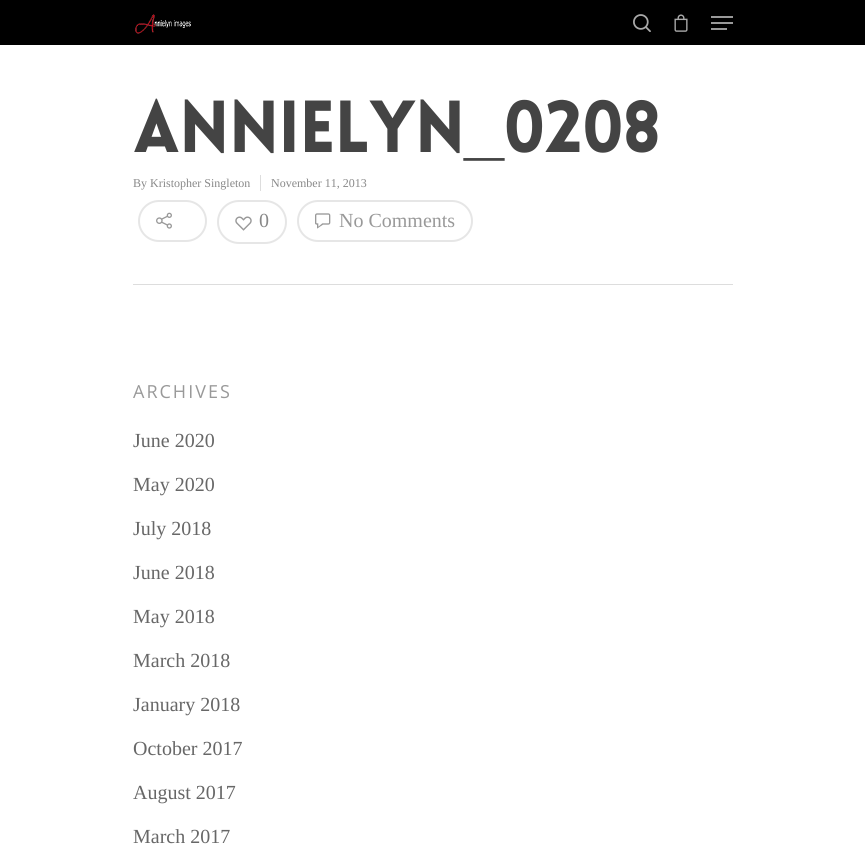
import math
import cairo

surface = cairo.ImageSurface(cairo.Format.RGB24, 865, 850)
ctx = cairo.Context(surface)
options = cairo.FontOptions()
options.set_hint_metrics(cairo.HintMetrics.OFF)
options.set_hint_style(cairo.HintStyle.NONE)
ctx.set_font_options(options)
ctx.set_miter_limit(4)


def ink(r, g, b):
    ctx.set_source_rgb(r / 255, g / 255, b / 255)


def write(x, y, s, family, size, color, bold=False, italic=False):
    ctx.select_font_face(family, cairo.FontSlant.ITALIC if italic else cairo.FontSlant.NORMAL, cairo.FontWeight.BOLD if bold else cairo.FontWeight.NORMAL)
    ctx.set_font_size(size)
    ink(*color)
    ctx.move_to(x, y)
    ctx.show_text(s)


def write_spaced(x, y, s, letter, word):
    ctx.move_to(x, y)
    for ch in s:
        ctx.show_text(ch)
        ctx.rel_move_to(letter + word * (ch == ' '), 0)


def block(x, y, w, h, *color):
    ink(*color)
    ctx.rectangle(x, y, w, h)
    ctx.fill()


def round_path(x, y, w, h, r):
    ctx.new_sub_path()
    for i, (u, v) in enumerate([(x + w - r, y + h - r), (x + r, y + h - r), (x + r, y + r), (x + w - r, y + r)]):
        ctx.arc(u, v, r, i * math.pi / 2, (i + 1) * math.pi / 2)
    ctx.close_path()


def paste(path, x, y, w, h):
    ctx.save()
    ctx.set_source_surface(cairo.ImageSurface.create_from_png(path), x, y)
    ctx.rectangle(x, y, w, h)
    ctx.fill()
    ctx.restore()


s1 = dict(family="Liberation Serif", size=12, color=(136, 136, 136))
s2 = dict(family="Liberation Serif", size=20, color=(136, 136, 136))
s3 = dict(family="Liberation Serif", size=20, color=(153, 153, 153))
s4 = dict(family="Liberation Serif", size=20, color=(103, 103, 103))

ink(255, 255, 255)
ctx.paint()
block(0, 0, 865, 45, 0, 0, 0)
paste("pic1.png", 135, 14, 56, 20)
paste("pic2.png", 633, 14, 18, 18)
paste("pic3.png", 674, 14, 14, 18)
block(711, 16, 22, 2, 153, 153, 153)
block(711, 28, 16, 2, 153, 153, 153)
block(711, 22, 22, 2, 153, 153, 153)
block(133, 284, 600, 1, 221, 221, 221)
ctx.select_font_face("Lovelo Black")
ctx.set_font_size(72)
ink(68, 68, 68)
write_spaced(133, 152, "annielyn", -1, 0)
write_spaced(503, 152, "0208", -1, 0)
ctx.select_font_face("Liberation Sans", cairo.FontSlant.NORMAL, cairo.FontWeight.BOLD)
write_spaced(464, 152, "_", -1, 0)
write(133, 187, "By Kristopher Singleton", **s1)
block(260, 175, 1, 16, 221, 221, 221)
write(271, 187, "November 11, 2013", **s1)
round_path(139, 201, 67, 40, 20)
ink(230, 230, 230)
ctx.stroke()
paste("pic4.png", 156, 212, 16, 17)
round_path(218, 201, 68, 42, 21)
ctx.stroke()
paste("pic5.png", 235, 216, 17, 15)
write(259, 227, "0", **s2)
round_path(298, 201, 174, 40, 20)
ink(230, 230, 230)
ctx.stroke()
paste("pic6.png", 315, 213, 16, 16)
write(339, 227, "No Comments", **s3)
ctx.select_font_face("Open Sans")
ctx.set_font_size(18)
write_spaced(133, 398, "ARCHIVES", 2, 0)
write(133, 447, "June 2020", **s4)
write(133, 491, "May 2020", **s4)
write(133, 535, "July 2018", **s4)
write(133, 579, "June 2018", **s4)
write(133, 623, "May 2018", **s4)
write(133, 667, "March 2018", **s4)
write(133, 711, "January 2018", **s4)
write(133, 755, "October 2017", **s4)
write(133, 799, "August 2017", **s4)
write(133, 843, "March 2017", **s4)
surface.write_to_png("screenshot.png")
